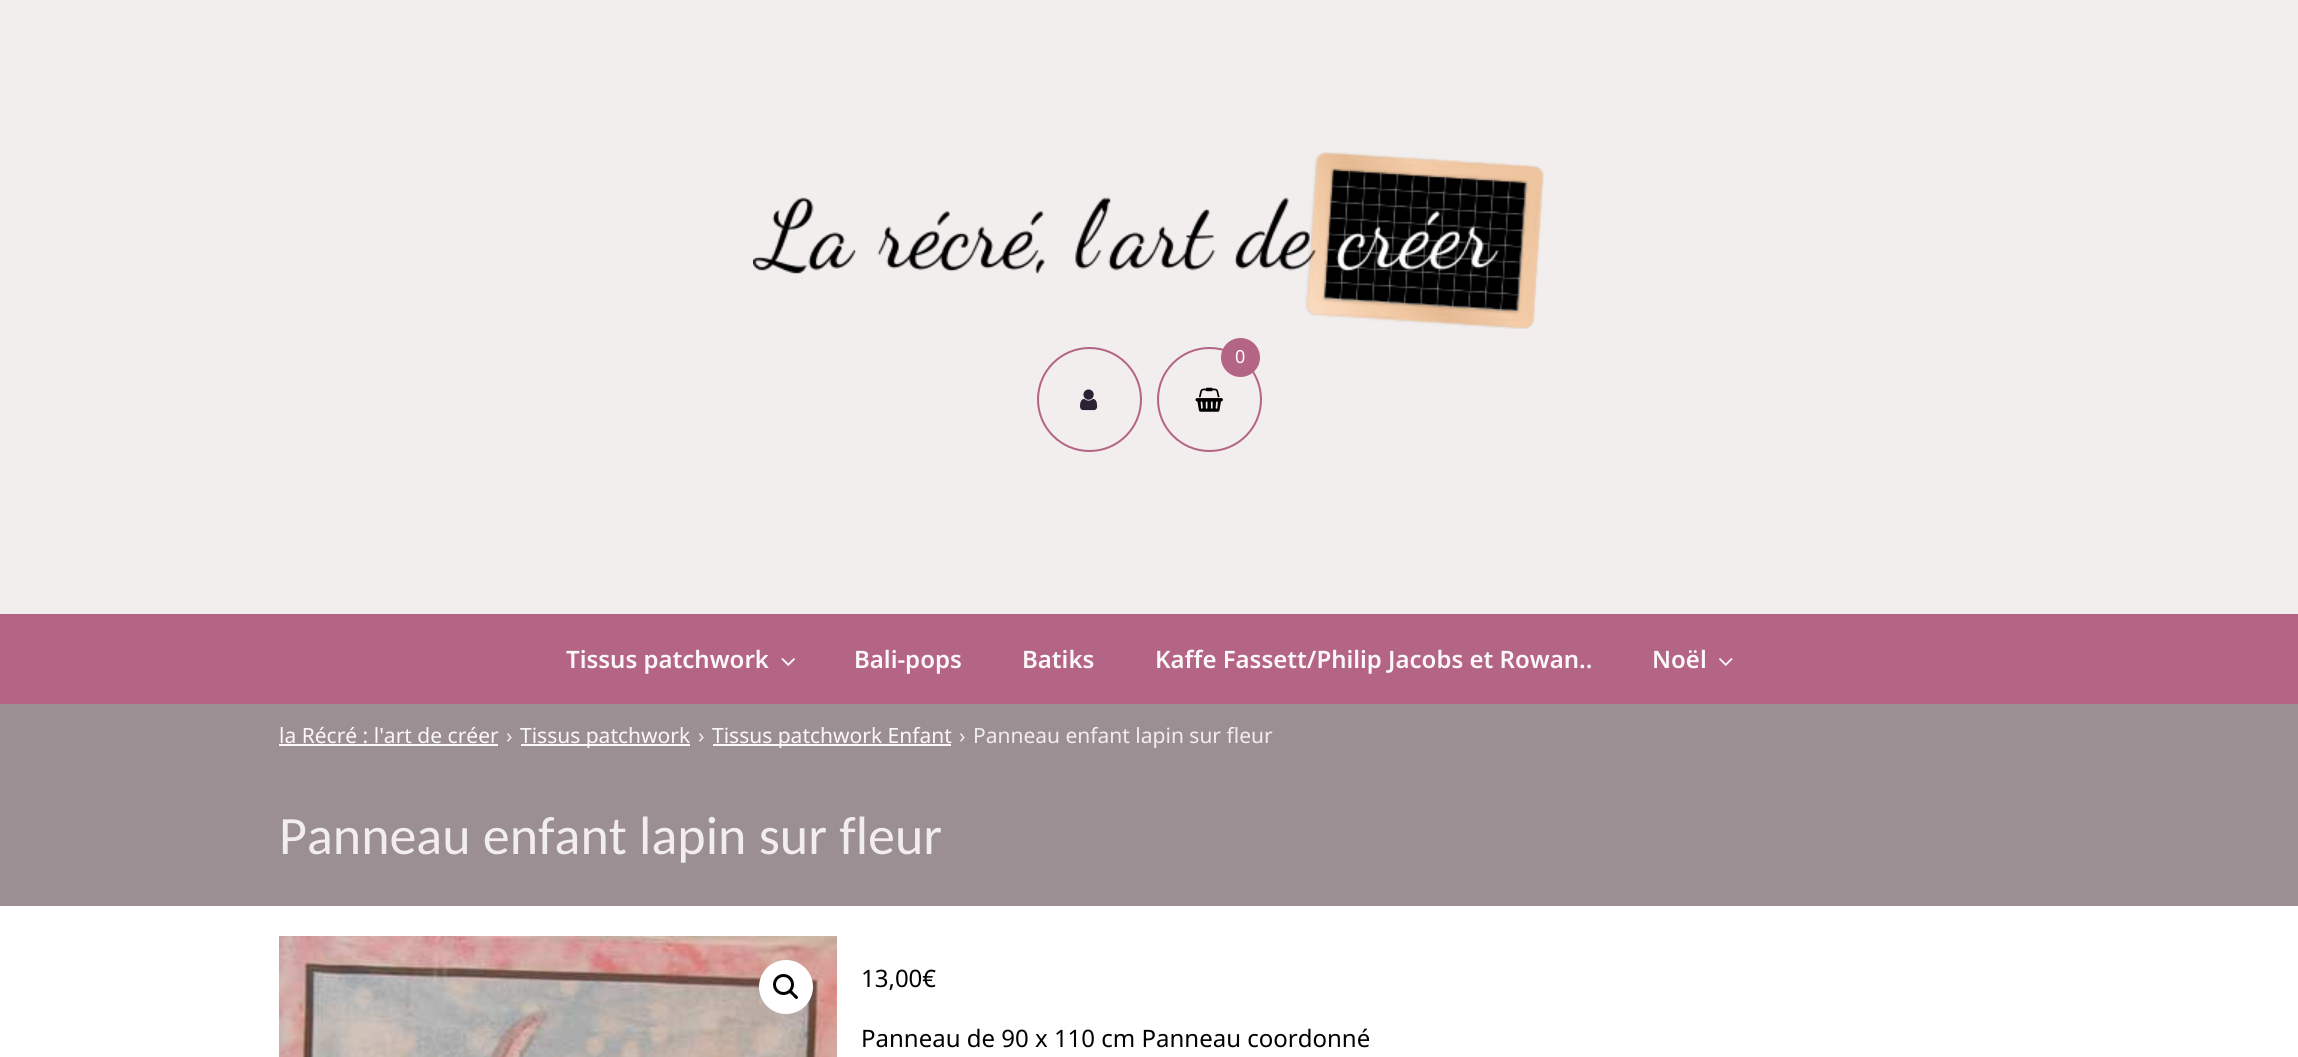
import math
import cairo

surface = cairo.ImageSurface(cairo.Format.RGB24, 2298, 1057)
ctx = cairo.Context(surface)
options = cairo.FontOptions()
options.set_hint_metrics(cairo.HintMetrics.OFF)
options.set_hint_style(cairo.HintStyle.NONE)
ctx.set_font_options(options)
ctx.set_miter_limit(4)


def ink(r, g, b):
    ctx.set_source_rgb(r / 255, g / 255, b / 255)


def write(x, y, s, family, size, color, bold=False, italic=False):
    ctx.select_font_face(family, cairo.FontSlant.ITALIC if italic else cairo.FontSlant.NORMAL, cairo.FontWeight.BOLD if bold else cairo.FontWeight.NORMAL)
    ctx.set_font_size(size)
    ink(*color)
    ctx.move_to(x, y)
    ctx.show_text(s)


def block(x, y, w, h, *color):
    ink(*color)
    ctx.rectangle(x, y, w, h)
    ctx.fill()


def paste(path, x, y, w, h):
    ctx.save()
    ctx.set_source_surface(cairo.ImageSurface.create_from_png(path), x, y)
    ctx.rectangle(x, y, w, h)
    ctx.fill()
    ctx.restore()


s1 = dict(family="Noto Sans", size=18, color=(255, 255, 255))
s2 = dict(family="Noto Sans SemiBold", size=24, color=(251, 248, 247))
s3 = dict(family="Noto Sans", size=21, color=(251, 248, 247))
s4 = dict(family="Noto Sans", size=21, color=(241, 238, 237))
s5 = dict(family="Carlito", size=54, color=(241, 238, 237))
s6 = dict(family="Noto Sans", size=24, color=(0, 0, 0))

ink(255, 255, 255)
ctx.paint()
block(0, 0, 2298, 614, 241, 238, 237)
paste("pic1.png", 753, 151, 791, 178)
ctx.arc(1089.5, 399.5, 51.5, 0, 2 * math.pi)
ink(180, 100, 133)
ctx.stroke()
paste("pic2.png", 1080, 389, 18, 22)
ctx.arc(1209.5, 399.5, 51.5, 0, 2 * math.pi)
ctx.stroke()
ctx.arc(1240.5, 357.5, 18.5, 0, 2 * math.pi)
ctx.fill_preserve()
ctx.stroke()
write(1235, 363, "0", **s1)
paste("pic3.png", 1195, 387, 28, 25)
block(0, 614, 2298, 90, 180, 100, 133)
write(566, 668, "Tissus patchwork", **s2)
paste("pic4.png", 781, 658, 14, 8)
write(854, 668, "Bali-pops", **s2)
write(1022, 668, "Batiks", **s2)
write(1155, 668, "Kaffe Fassett/Philip Jacobs et Rowan..", **s2)
write(1652, 668, "Noël", **s2)
paste("pic5.png", 1719, 658, 14, 8)
block(0, 704, 2298, 202, 156, 143, 148)
write(279, 743, "la Récré : l'art de créer", **s3)
block(279, 744, 219, 2, 251, 248, 247)
write(506, 743, "›", **s4)
block(521, 744, 169, 2, 251, 248, 247)
write(520, 743, "Tissus patchwork", **s3)
write(698, 743, "›", **s4)
block(713, 744, 238, 2, 251, 248, 247)
write(712, 743, "Tissus patchwork Enfant", **s3)
write(959, 743, "›", **s4)
write(973, 743, "Panneau enfant lapin sur fleur", **s4)
write(279, 854, "Panneau enfant lapin sur fleur", **s5)
paste("pic6.png", 279, 936, 558, 121)
ink(255, 255, 255)
ctx.arc(786, 987, 27, 0, 2 * math.pi)
ctx.fill()
ctx.arc(783.5, 984.5, 9, 0, 2 * math.pi)
ink(0, 0, 0)
ctx.set_line_width(3)
ctx.stroke()
ctx.new_path()
ctx.move_to(789.5, 990.5)
ctx.curve_to(791, 988.5, 793.5, 992.5, 794.5, 993.5)
ctx.curve_to(795.5, 994.5, 799.5, 997, 797.5, 998.5)
ctx.curve_to(796, 1000.5, 793.5, 996.5, 792.5, 995.5)
ctx.curve_to(791.5, 994.5, 787.5, 992, 789.5, 990.5)
ctx.close_path()
ctx.fill()
write(861, 987, "13,00€", **s6)
write(861, 1047, "Panneau de 90 x 110 cm Panneau coordonné", **s6)
surface.write_to_png("screenshot.png")
